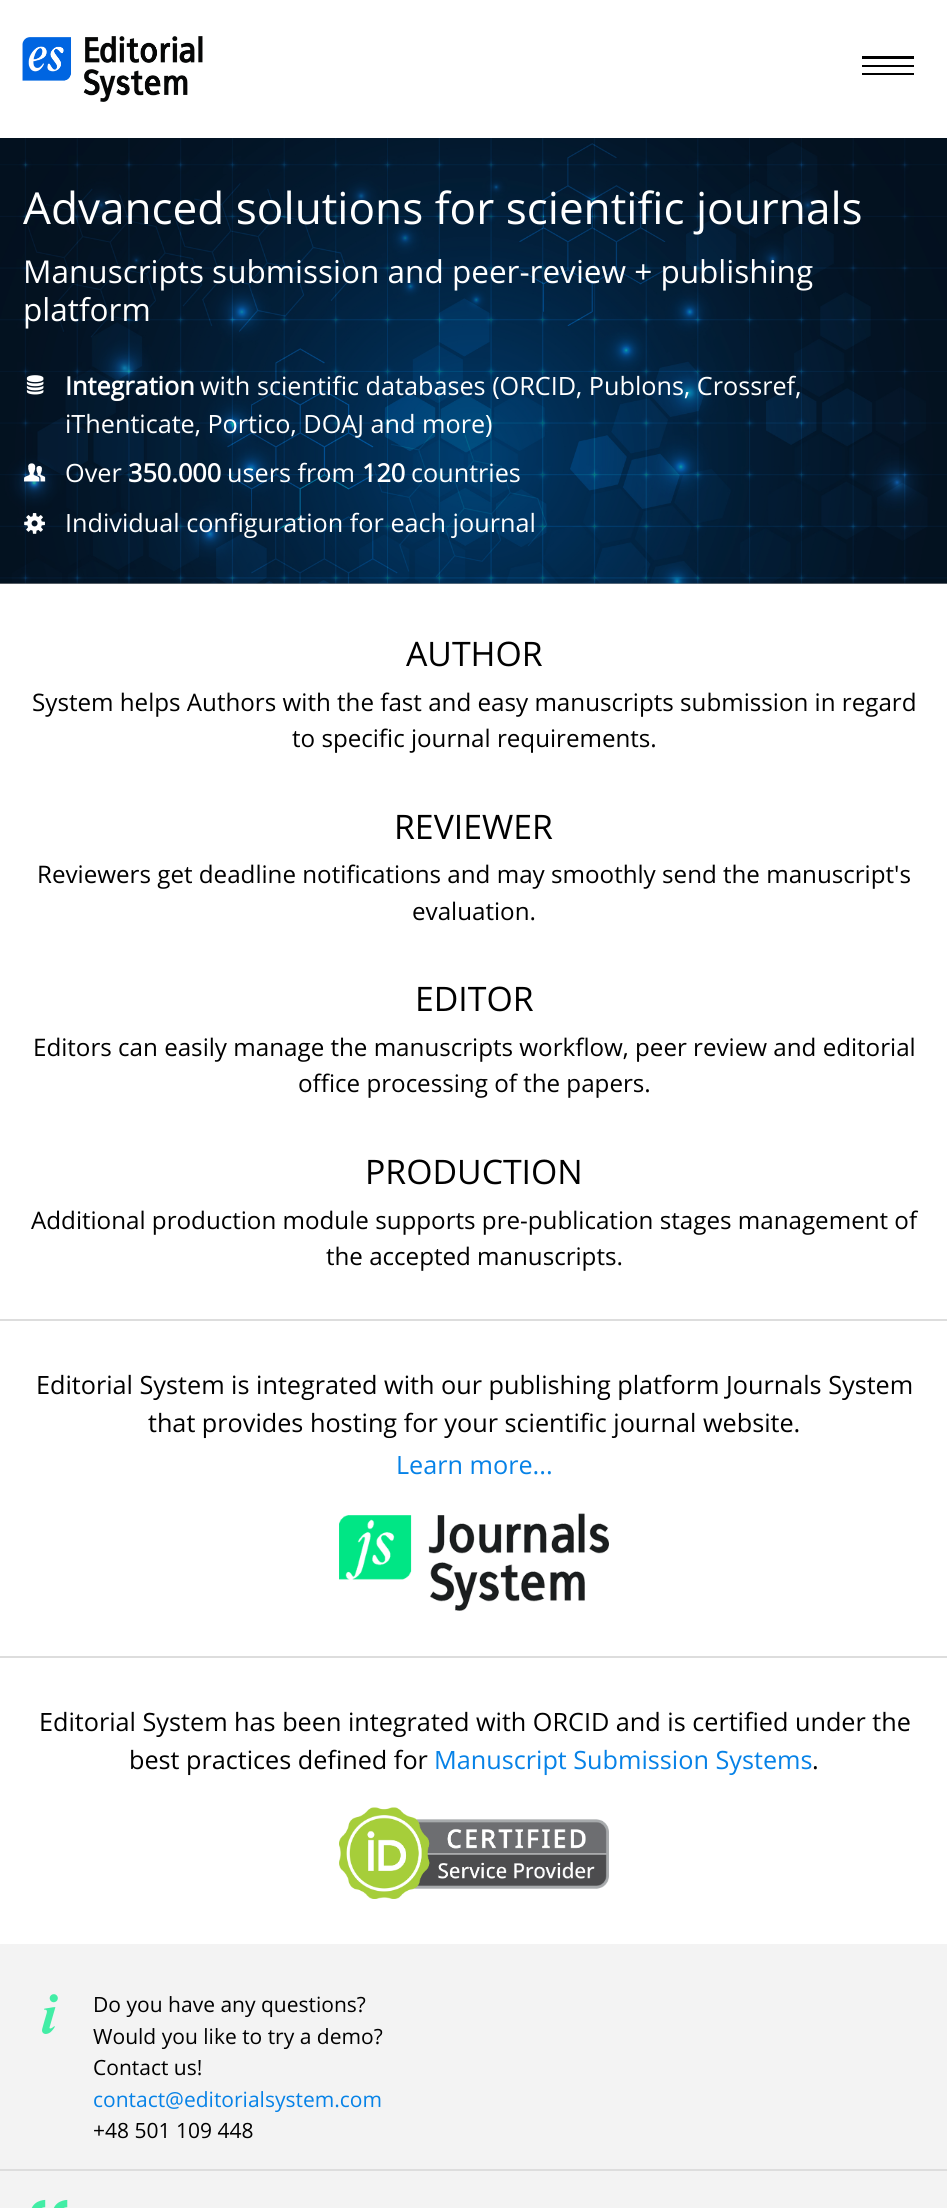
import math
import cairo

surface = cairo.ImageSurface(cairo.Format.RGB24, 947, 2208)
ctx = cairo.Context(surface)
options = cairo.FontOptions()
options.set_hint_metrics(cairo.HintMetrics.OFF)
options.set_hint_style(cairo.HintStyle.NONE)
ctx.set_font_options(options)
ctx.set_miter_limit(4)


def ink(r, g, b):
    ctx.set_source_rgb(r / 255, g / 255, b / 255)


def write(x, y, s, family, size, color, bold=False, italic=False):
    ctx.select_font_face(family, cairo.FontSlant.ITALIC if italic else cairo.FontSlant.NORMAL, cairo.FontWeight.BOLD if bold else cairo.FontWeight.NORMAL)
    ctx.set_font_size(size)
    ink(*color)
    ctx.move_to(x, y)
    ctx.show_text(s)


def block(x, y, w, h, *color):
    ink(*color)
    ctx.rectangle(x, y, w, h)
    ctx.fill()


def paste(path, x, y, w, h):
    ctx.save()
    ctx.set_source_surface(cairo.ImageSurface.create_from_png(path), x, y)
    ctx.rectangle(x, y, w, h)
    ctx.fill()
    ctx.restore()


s1 = dict(family="Open Sans", size=44.1, color=(255, 255, 255))
s2 = dict(family="Open Sans", size=31.5, color=(255, 255, 255))
s3 = dict(family="Open Sans", size=25.2, color=(255, 255, 255), bold=True)
s4 = dict(family="Open Sans", size=25.2, color=(255, 255, 255))
s5 = dict(family="Open Sans", size=33.75, color=(0, 0, 0))
s6 = dict(family="Open Sans", size=24.15, color=(0, 0, 0))
s7 = dict(family="Open Sans", size=25.2, color=(0, 0, 0))
s8 = dict(family="Open Sans", size=25.2, color=(6, 130, 231))
s9 = dict(family="Open Sans", size=21, color=(0, 0, 0))
s10 = dict(family="Open Sans", size=21, color=(6, 130, 231))

ink(255, 255, 255)
ctx.paint()
block(0, 583, 947, 1, 166, 166, 166)
paste("pic1.png", 22, 36, 181, 66)
ink(0, 0, 0)
ctx.new_path()
ctx.move_to(862, 73)
ctx.line_to(862, 75)
ctx.line_to(914, 75)
ctx.line_to(914, 73)
ctx.close_path()
ctx.move_to(862, 65)
ctx.line_to(862, 67)
ctx.line_to(914, 67)
ctx.line_to(914, 65)
ctx.close_path()
ctx.move_to(862, 56)
ctx.line_to(862, 59)
ctx.line_to(914, 59)
ctx.line_to(914, 56)
ctx.close_path()
ctx.fill()
paste("pic2.png", 0, 138, 947, 446)
write(23, 224, "Advanced solutions for scientific journals", **s1)
write(23, 283, "Manuscripts submission and peer-review + publishing", **s2)
write(23, 321, "platform", **s2)
paste("pic3.png", 26, 375, 18, 20)
write(65, 395, "Integration", **s3)
write(200, 395, "with scientific databases (ORCID, Publons, Crossref,", **s4)
write(65, 433, "iThenticate, Portico, DOAJ and more)", **s4)
paste("pic4.png", 24, 463, 22, 19)
write(65, 482, "Over", **s4)
write(128, 482, "350.000", **s3)
write(227, 482, "users from", **s4)
write(362, 482, "120", **s3)
write(411, 482, "countries", **s4)
paste("pic5.png", 24, 513, 21, 21)
write(65, 532, "Individual configuration for each journal", **s4)
write(406, 666, "AUTHOR", **s5)
write(32, 711, "System helps Authors with the fast and easy manuscripts submission in regard", **s6)
write(292, 747, "to specific journal requirements.", **s6)
write(394, 839, "REVIEWER", **s5)
write(37, 883, "Reviewers get deadline notifications and may smoothly send the manuscript's", **s6)
write(412, 920, "evaluation.", **s6)
write(415, 1011, "EDITOR", **s5)
write(33, 1056, "Editors can easily manage the manuscripts workflow, peer review and editorial", **s6)
write(298, 1092, "office processing of the papers.", **s6)
write(365, 1184, "PRODUCTION", **s5)
write(31, 1229, "Additional production module supports pre-publication stages management of", **s6)
write(326, 1265, "the accepted manuscripts.", **s6)
block(0, 1319, 947, 2, 221, 221, 221)
write(36, 1394, "Editorial System is integrated with our publishing platform Journals System", **s7)
write(148, 1432, "that provides hosting for your scientific journal website.", **s7)
write(396, 1474, "Learn more...", **s8)
paste("pic6.png", 339, 1513, 270, 98)
block(0, 1656, 947, 2, 221, 221, 221)
write(39, 1731, "Editorial System has been integrated with ORCID and is certified under the", **s7)
write(129, 1769, "best practices defined for", **s7)
write(434, 1769, "Manuscript Submission Systems", **s8)
write(812, 1769, ".", **s7)
paste("pic7.png", 339, 1807, 270, 92)
block(0, 1944, 947, 264, 243, 243, 243)
block(0, 2169, 947, 2, 221, 221, 221)
paste("pic8.png", 42, 1994, 16, 40)
write(93, 2012, "Do you have any questions?", **s9)
write(93, 2044, "Would you like to try a demo?", **s9)
write(93, 2075, "Contact us!", **s9)
write(93, 2107, "contact@editorialsystem.com", **s10)
write(93, 2138, "+48 501 109 448", **s9)
paste("pic9.png", 31, 2199, 37, 9)
surface.write_to_png("screenshot.png")
